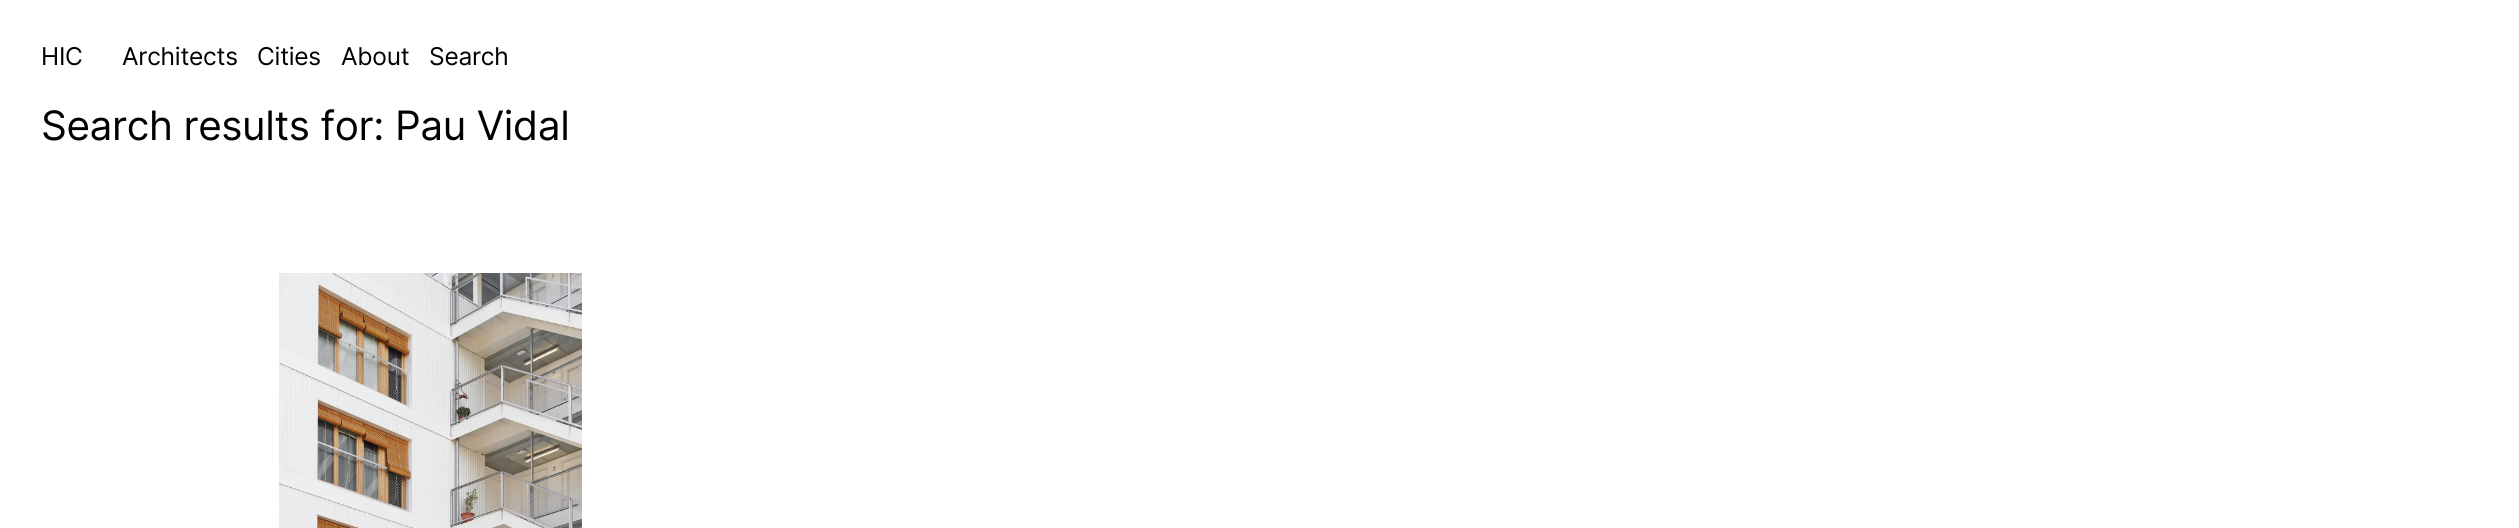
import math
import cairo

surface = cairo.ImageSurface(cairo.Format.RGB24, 2519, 528)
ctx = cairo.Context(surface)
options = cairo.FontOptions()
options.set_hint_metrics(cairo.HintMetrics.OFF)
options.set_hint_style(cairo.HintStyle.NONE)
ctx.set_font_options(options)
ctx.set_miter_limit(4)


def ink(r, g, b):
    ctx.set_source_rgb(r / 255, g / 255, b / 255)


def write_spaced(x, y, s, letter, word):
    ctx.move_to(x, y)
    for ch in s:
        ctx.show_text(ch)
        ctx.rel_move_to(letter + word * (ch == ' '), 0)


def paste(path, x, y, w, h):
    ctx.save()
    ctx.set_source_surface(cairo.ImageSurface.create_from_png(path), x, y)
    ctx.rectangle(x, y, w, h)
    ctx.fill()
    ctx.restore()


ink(255, 255, 255)
ctx.paint()
ctx.select_font_face("Inter")
ctx.set_font_size(24.5)
ink(0, 0, 0)
write_spaced(41, 65, "HIC", -0.25, 0)
write_spaced(122, 65, "Architects", -0.25, 0)
write_spaced(257, 65, "Cities", -0.25, 0)
write_spaced(341, 65, "About", -0.25, 0)
write_spaced(429, 65, "Search", -0.25, 0)
ctx.set_font_size(40.5)
write_spaced(41, 140, "Search results for: Pau Vidal", -0.4, 0)
paste("pic1.png", 279, 273, 303, 255)
surface.write_to_png("screenshot.png")
